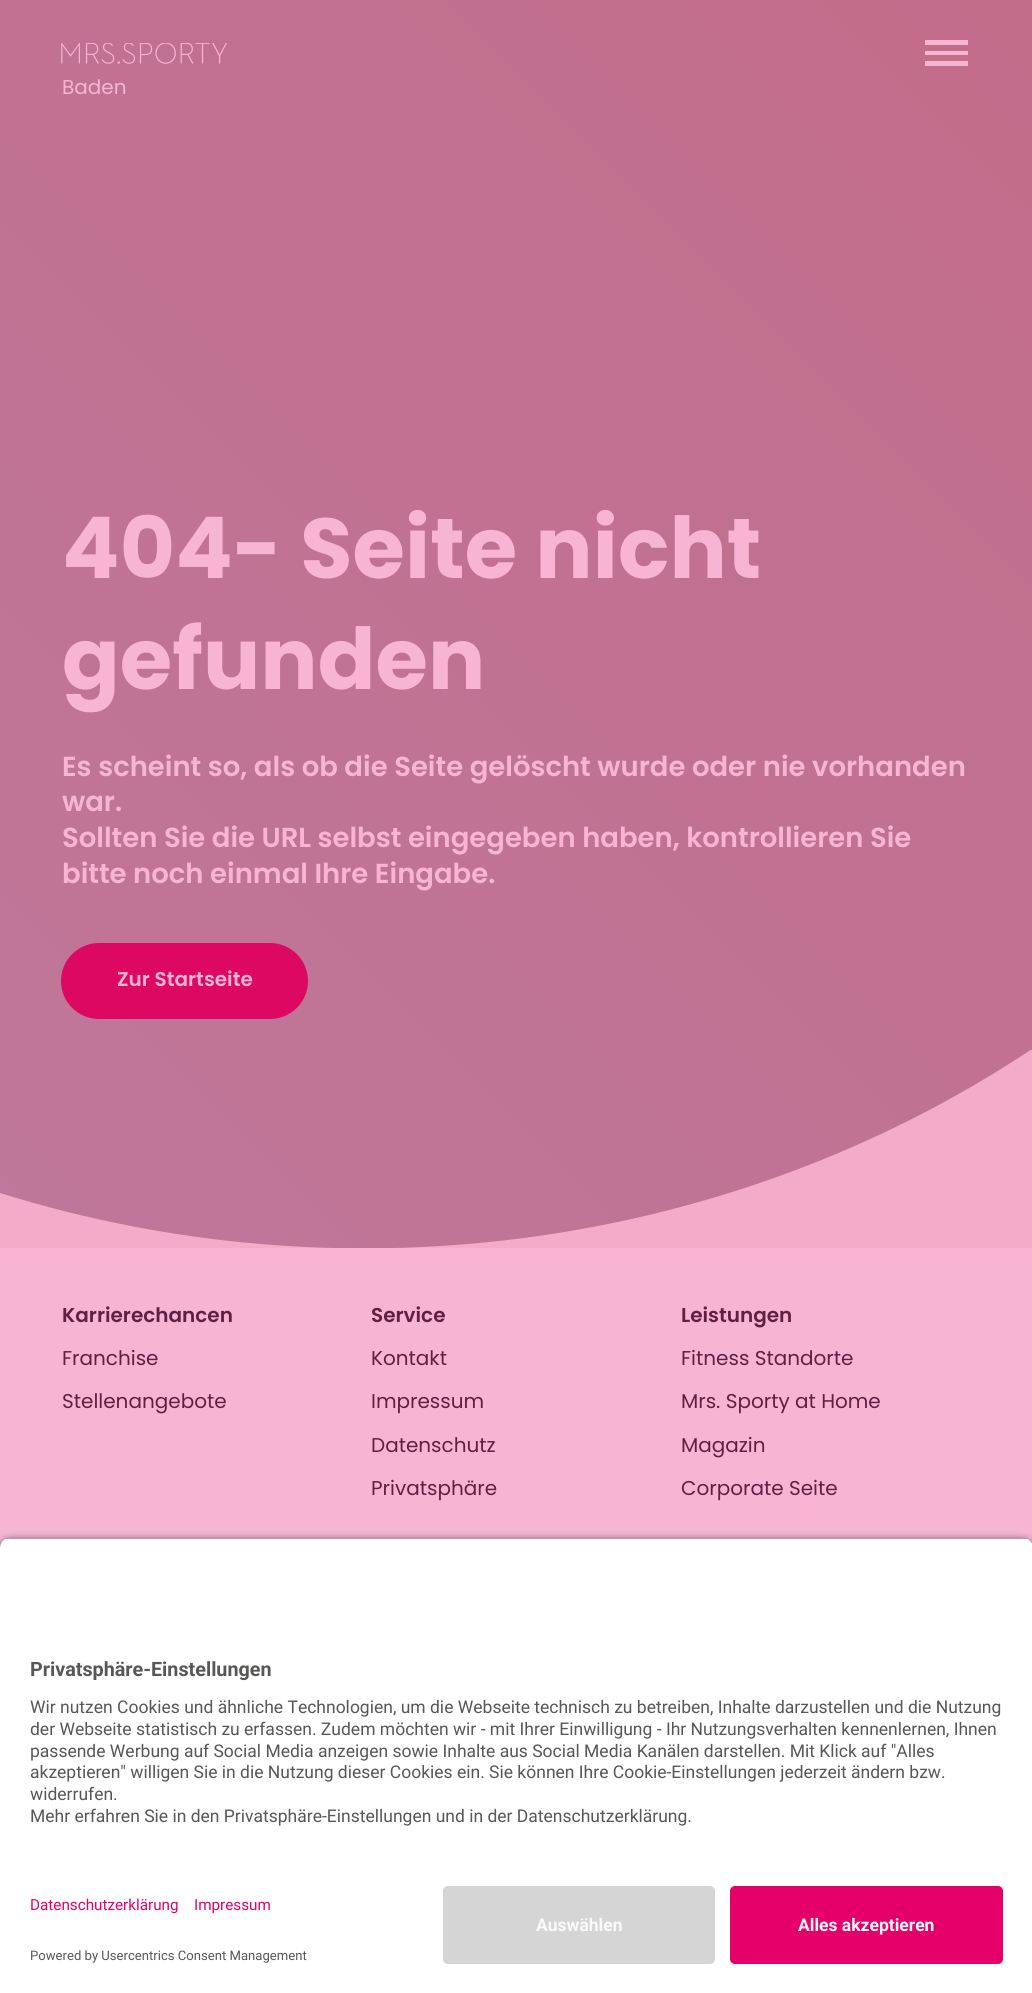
import math
import cairo

surface = cairo.ImageSurface(cairo.Format.RGB24, 1032, 1993)
ctx = cairo.Context(surface)
options = cairo.FontOptions()
options.set_hint_metrics(cairo.HintMetrics.OFF)
options.set_hint_style(cairo.HintStyle.NONE)
ctx.set_font_options(options)
ctx.set_miter_limit(4)


def ink(r, g, b):
    ctx.set_source_rgb(r / 255, g / 255, b / 255)


def write(x, y, s, family, size, color, bold=False, italic=False):
    ctx.select_font_face(family, cairo.FontSlant.ITALIC if italic else cairo.FontSlant.NORMAL, cairo.FontWeight.BOLD if bold else cairo.FontWeight.NORMAL)
    ctx.set_font_size(size)
    ink(*color)
    ctx.move_to(x, y)
    ctx.show_text(s)


def write_spaced(x, y, s, letter, word):
    ctx.move_to(x, y)
    for ch in s:
        ctx.show_text(ch)
        ctx.rel_move_to(letter + word * (ch == ' '), 0)


def block(x, y, w, h, *color):
    ink(*color)
    ctx.rectangle(x, y, w, h)
    ctx.fill()


def round_path(x, y, w, h, r):
    ctx.new_sub_path()
    for i, (u, v) in enumerate([(x + w - r, y + h - r), (x + r, y + h - r), (x + r, y + r), (x + w - r, y + r)]):
        ctx.arc(u, v, r, i * math.pi / 2, (i + 1) * math.pi / 2)
    ctx.close_path()


def blur_box(x, y, w, h, r, blur, alpha):
    ctx.push_group_with_content(cairo.Content.ALPHA)
    ctx.set_operator(cairo.Operator.SOURCE)
    for i in range(15, -16, -2):
        e = blur * i / 6
        if min(w, h) + 2 * e > 0:
            ctx.set_source_rgba(0, 0, 0, alpha * math.erfc((i - 1) / 8.5) / 2)
            round_path(x - e, y - e, w + 2 * e, h + 2 * e, max(0, min(r + e + blur * .6, min(w, h) / 2 + e)))
            ctx.fill()
    ctx.mask(ctx.pop_group())


def paste(path, x, y, w, h):
    ctx.save()
    ctx.set_source_surface(cairo.ImageSurface.create_from_png(path), x, y)
    ctx.rectangle(x, y, w, h)
    ctx.fill()
    ctx.restore()


s1 = dict(family="Poppins", size=20, color=(247, 181, 211))
s2 = dict(family="Poppins SemiBold", size=27.5, color=(247, 181, 211))
s3 = dict(family="Poppins SemiBold", size=20, color=(247, 181, 211))
s4 = dict(family="Poppins SemiBold", size=20, color=(95, 32, 67))
s5 = dict(family="Poppins", size=20, color=(95, 32, 67))
s6 = dict(family="Roboto", size=19.75, color=(87, 87, 86), bold=True)
s7 = dict(family="Roboto", size=17.5, color=(87, 87, 86))
s8 = dict(family="Roboto", size=15.25, color=(229, 0, 105))
s9 = dict(family="Roboto", size=13.1, color=(87, 87, 86))
s10 = dict(family="Roboto", size=17.5, color=(250, 250, 250), bold=True)

ink(247, 181, 211)
ctx.paint()
gradient = cairo.LinearGradient(-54, 1194, 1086, 54)
gradient.add_color_stop_rgba(0, 0.749, 0.467, 0.604, 1)
gradient.add_color_stop_rgba(1, 0.761, 0.427, 0.541, 1)
ctx.set_source(gradient)
ctx.rectangle(0, 0, 1032, 1248)
ctx.fill()
block(925, 61, 43, 5, 247, 181, 211)
block(925, 40, 43, 5, 247, 181, 211)
block(925, 51, 43, 4, 247, 181, 211)
paste("pic1.png", 61, 43, 166, 21)
write(62, 94, "Baden", **s1)
ctx.save()
ctx.rectangle(0, 1050, 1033, 198)
ctx.clip()
ink(244, 171, 200)
ctx.new_path()
ctx.move_to(0, 1193)
ctx.line_to(0, 1249)
ctx.line_to(1032, 1249)
ctx.line_to(1032, 1049)
ctx.curve_to(730, 1250, 345, 1301, 0, 1193)
ctx.close_path()
ctx.fill()
ctx.restore()
ctx.select_font_face("Poppins", cairo.FontSlant.NORMAL, cairo.FontWeight.BOLD)
ctx.set_font_size(85)
write_spaced(62, 578, "404- Seite nicht", 0.1, 0)
write_spaced(62, 689, "gefunden", 0.1, 0)
write(62, 776, "Es scheint so, als ob die Seite gelöscht wurde oder nie vorhanden", **s2)
write(62, 811, "war.", **s2)
write(62, 847, "Sollten Sie die URL selbst eingegeben haben, kontrollieren Sie", **s2)
write(62, 883, "bitte noch einmal Ihre Eingabe.", **s2)
ink(221, 8, 97)
round_path(63.5, 945.5, 242, 71, 35.5)
ctx.fill_preserve()
ctx.set_line_width(5)
ctx.stroke()
write(117, 986, "Zur Startseite", **s3)
write(62, 1322, "Karrierechancen", **s4)
write(62, 1365, "Franchise", **s5)
write(62, 1408, "Stellenangebote", **s5)
write(371, 1322, "Service", **s4)
write(371, 1365, "Kontakt", **s5)
write(371, 1408, "Impressum", **s5)
write(371, 1452, "Datenschutz", **s5)
write(371, 1495, "Privatsphäre", **s5)
write(681, 1322, "Leistungen", **s4)
write(681, 1365, "Fitness Standorte", **s5)
write(681, 1408, "Mrs. Sporty at Home", **s5)
write(681, 1452, "Magazin", **s5)
write(681, 1495, "Corporate Seite", **s5)
ink(0, 0, 0)
blur_box(0, 1541, 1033, 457, 10, 4.5, 0.8)
ctx.save()
ctx.new_path()
ctx.move_to(10, 1538)
ctx.line_to(1023, 1538)
ctx.curve_to(1028.5, 1538, 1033, 1542.5, 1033, 1548)
ctx.line_to(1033, 1876)
ctx.line_to(0, 1876)
ctx.line_to(0, 1548)
ctx.curve_to(0, 1542.5, 4.5, 1538, 10, 1538)
ctx.close_path()
ctx.clip()
block(0, 1539, 1032, 337, 255, 255, 255)
ctx.restore()
write(30, 1676, "Privatsphäre-Einstellungen", **s6)
write(30, 1713, "Wir nutzen Cookies und ähnliche Technologien, um die Webseite technisch zu betreiben, Inhalte darzustellen und die Nutzung", **s7)
write(30, 1735, "der Webseite statistisch zu erfassen. Zudem möchten wir - mit Ihrer Einwilligung - Ihr Nutzungsverhalten kennenlernen, Ihnen", **s7)
write(30, 1757, "passende Werbung auf Social Media anzeigen sowie Inhalte aus Social Media Kanälen darstellen. Mit Klick auf \"Alles", **s7)
write(30, 1778, "akzeptieren\" willigen Sie in die Nutzung dieser Cookies ein. Sie können Ihre Cookie-Einstellungen jederzeit ändern bzw.", **s7)
write(30, 1800, "widerrufen.", **s7)
write(30, 1822, "Mehr erfahren Sie in den Privatsphäre-Einstellungen und in der Datenschutzerklärung.", **s7)
block(0, 1876, 1032, 117, 255, 255, 255)
write(30, 1910, "Datenschutzerklärung", **s8)
write(194, 1910, "Impressum", **s8)
write(30, 1960, "Powered by Usercentrics Consent Management", **s9)
ink(213, 213, 213)
round_path(443, 1886, 272, 78, 5)
ctx.fill()
write(536, 1931, "Auswählen", **s10)
ink(229, 0, 105)
round_path(730, 1886, 273, 78, 5)
ctx.fill()
write(798, 1931, "Alles akzeptieren", **s10)
surface.write_to_png("screenshot.png")
